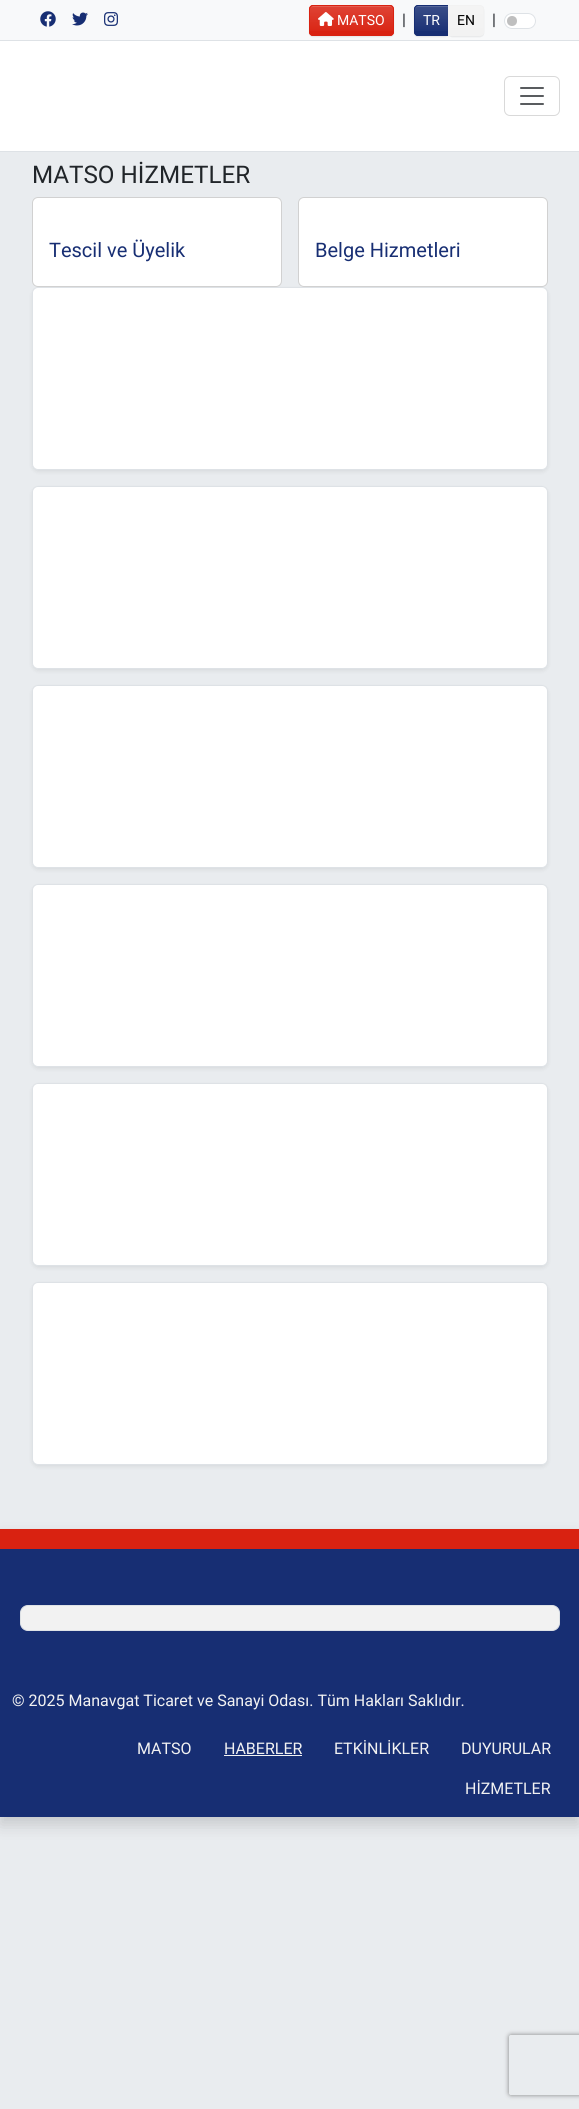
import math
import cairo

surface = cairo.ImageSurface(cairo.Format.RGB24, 579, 2109)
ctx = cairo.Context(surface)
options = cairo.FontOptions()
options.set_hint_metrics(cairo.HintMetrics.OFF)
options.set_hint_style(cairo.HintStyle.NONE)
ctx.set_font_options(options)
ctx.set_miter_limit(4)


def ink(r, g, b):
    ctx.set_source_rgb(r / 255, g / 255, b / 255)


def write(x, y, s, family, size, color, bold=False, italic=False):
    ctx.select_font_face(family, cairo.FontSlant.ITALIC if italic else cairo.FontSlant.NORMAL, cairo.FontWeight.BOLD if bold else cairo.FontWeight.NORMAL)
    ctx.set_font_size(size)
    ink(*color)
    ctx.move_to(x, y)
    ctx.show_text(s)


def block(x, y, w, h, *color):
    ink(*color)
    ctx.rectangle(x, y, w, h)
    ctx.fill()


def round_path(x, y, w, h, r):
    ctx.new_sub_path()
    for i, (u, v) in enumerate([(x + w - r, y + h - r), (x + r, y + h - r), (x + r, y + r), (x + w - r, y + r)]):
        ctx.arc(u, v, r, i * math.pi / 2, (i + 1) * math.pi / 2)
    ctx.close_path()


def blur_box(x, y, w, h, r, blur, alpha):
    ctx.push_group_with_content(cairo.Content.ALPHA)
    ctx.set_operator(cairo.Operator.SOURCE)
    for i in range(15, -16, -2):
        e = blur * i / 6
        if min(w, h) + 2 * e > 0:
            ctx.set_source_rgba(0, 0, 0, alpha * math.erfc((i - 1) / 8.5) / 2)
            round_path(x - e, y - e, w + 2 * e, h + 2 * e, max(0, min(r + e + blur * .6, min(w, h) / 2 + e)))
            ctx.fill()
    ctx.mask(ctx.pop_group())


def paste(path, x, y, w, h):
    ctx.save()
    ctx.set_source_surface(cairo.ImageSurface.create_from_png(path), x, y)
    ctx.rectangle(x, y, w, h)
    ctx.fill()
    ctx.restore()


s1 = dict(family="Roboto", size=14, color=(255, 255, 255))
s2 = dict(family="Roboto", size=16, color=(33, 37, 41))
s3 = dict(family="Roboto", size=14, color=(0, 0, 0))
s4 = dict(family="Roboto", size=24.25, color=(33, 37, 41))
s5 = dict(family="Roboto", size=20, color=(23, 46, 115))
s6 = dict(family="Roboto", size=16, color=(242, 242, 242))

ink(233, 236, 239)
ctx.paint()
block(0, 0, 579, 40, 248, 249, 250)
block(0, 40, 579, 1, 222, 226, 230)
paste("pic1.png", 40, 11, 16, 16)
paste("pic2.png", 72, 12, 16, 14)
paste("pic3.png", 104, 12, 14, 14)
ink(0, 0, 0)
blur_box(309, 6, 85, 31, 4, 0.5, 0.07)
ink(217, 34, 17)
round_path(309, 5, 85, 31, 4)
ctx.fill()
gradient = cairo.LinearGradient(352, 6, 352, 35)
gradient.add_color_stop_rgba(0, 1, 1, 1, 0.15)
gradient.add_color_stop_rgba(1, 1, 1, 1, 0)
ctx.set_source(gradient)
ctx.rectangle(309, 6, 85, 25)
ctx.fill()
ctx.set_source_rgba(1, 1, 1, 0.15)
ctx.new_path()
ctx.move_to(313, 7)
ctx.line_to(390, 7)
ctx.curve_to(392, 7, 393, 8, 393, 10)
ctx.curve_to(393, 3, 381, 6, 377, 6)
ctx.line_to(326, 6)
ctx.curve_to(322, 6, 310, 3, 310, 10)
ctx.curve_to(310, 8, 311, 7, 313, 7)
ctx.close_path()
ctx.fill()
round_path(309.5, 5.5, 84, 30, 3.5)
ink(217, 34, 17)
ctx.set_line_width(1)
ctx.stroke()
paste("pic4.png", 318, 12, 16, 14)
write(337, 25, "MATSO", **s1)
write(402, 25, "|", **s2)
ink(0, 0, 0)
blur_box(414, 6, 35, 31, 4, 0.5, 0.07)
ink(23, 46, 115)
ctx.new_path()
ctx.move_to(418, 5)
ctx.line_to(449, 5)
ctx.line_to(449, 36)
ctx.line_to(418, 36)
ctx.curve_to(416, 36, 414, 34, 414, 32)
ctx.line_to(414, 9)
ctx.curve_to(414, 7, 416, 5, 418, 5)
ctx.close_path()
ctx.fill()
gradient = cairo.LinearGradient(432, 6, 432, 35)
gradient.add_color_stop_rgba(0, 1, 1, 1, 0.15)
gradient.add_color_stop_rgba(1, 1, 1, 1, 0)
ctx.set_source(gradient)
ctx.rectangle(414, 6, 34, 25)
ctx.fill()
ink(87, 104, 154)
ctx.new_path()
ctx.move_to(418, 7)
ctx.line_to(448, 7)
ctx.line_to(448, 6)
ctx.line_to(418, 6)
ctx.curve_to(416.5, 6, 415, 7.5, 415, 9)
ctx.line_to(415, 10)
ctx.curve_to(415, 8, 416, 7, 418, 7)
ctx.close_path()
ctx.fill()
ctx.new_path()
ctx.move_to(418, 5.5)
ctx.line_to(448.5, 5.5)
ctx.line_to(448.5, 35.5)
ctx.line_to(418, 35.5)
ctx.curve_to(416, 35.5, 414.5, 34, 414.5, 32)
ctx.line_to(414.5, 9)
ctx.curve_to(414.5, 7, 416, 5.5, 418, 5.5)
ctx.close_path()
ink(23, 46, 115)
ctx.stroke()
write(423, 25, "TR", **s1)
ink(0, 0, 0)
blur_box(448, 6, 36, 31, 4, 0.5, 0.07)
ctx.save()
ctx.new_path()
ctx.move_to(448, 5)
ctx.line_to(480, 5)
ctx.curve_to(482, 5, 484, 7, 484, 9)
ctx.line_to(484, 32)
ctx.curve_to(484, 34, 482, 36, 480, 36)
ctx.line_to(448, 36)
ctx.close_path()
ctx.clip()
gradient = cairo.LinearGradient(466, 6, 466, 35)
gradient.add_color_stop_rgba(0, 0.957, 0.957, 0.957, 1)
gradient.add_color_stop_rgba(1, 0.949, 0.949, 0.949, 1)
ctx.set_source(gradient)
ctx.rectangle(449, 6, 35, 29)
ctx.fill()
ctx.restore()
ctx.new_path()
ctx.move_to(448.5, 5.5)
ctx.line_to(480, 5.5)
ctx.curve_to(482, 5.5, 483.5, 7, 483.5, 9)
ctx.line_to(483.5, 32)
ctx.curve_to(483.5, 34, 482, 35.5, 480, 35.5)
ctx.line_to(448.5, 35.5)
ctx.close_path()
ink(242, 242, 242)
ctx.stroke()
write(457, 25, "EN", **s3)
write(492, 25, "|", **s2)
ink(255, 255, 255)
round_path(504, 13, 32, 16, 8)
ctx.fill()
ink(191, 191, 191)
ctx.arc(512, 21, 5, 0, 2 * math.pi)
ctx.fill()
round_path(504.5, 13.5, 31, 15, 7.5)
ink(222, 226, 230)
ctx.stroke()
block(0, 41, 579, 110, 255, 255, 255)
block(0, 151, 579, 1, 222, 226, 230)
round_path(504.5, 76.5, 55, 39, 5.5)
ink(217, 217, 217)
ctx.stroke()
paste("pic5.png", 520, 87, 24, 18)
write(32, 183, "MATSO HİZMETLER", **s4)
ink(0, 0, 0)
blur_box(32, 289, 516, 183, 6, 2, 0.07)
ink(255, 255, 255)
round_path(32, 197, 250, 90, 6)
ctx.fill()
round_path(32.5, 197.5, 249, 89, 5.5)
ctx.set_source_rgba(0, 0, 0, 0.18)
ctx.stroke()
write(49, 257, "Tescil ve Üyelik", **s5)
ink(255, 255, 255)
round_path(298, 197, 250, 90, 6)
ctx.fill()
round_path(298.5, 197.5, 249, 89, 5.5)
ctx.set_source_rgba(0, 0, 0, 0.18)
ctx.stroke()
write(315, 257, "Belge Hizmetleri", **s5)
ink(255, 255, 255)
round_path(32.5, 287.5, 515, 182, 5.5)
ctx.fill_preserve()
ink(222, 226, 230)
ctx.stroke()
ink(0, 0, 0)
blur_box(32, 488, 516, 183, 6, 2, 0.07)
ink(255, 255, 255)
round_path(32.5, 486.5, 515, 182, 5.5)
ctx.fill_preserve()
ink(222, 226, 230)
ctx.stroke()
ink(0, 0, 0)
blur_box(32, 687, 516, 183, 6, 2, 0.07)
ink(255, 255, 255)
round_path(32.5, 685.5, 515, 182, 5.5)
ctx.fill_preserve()
ink(222, 226, 230)
ctx.stroke()
ink(0, 0, 0)
blur_box(32, 886, 516, 183, 6, 2, 0.07)
ink(255, 255, 255)
round_path(32.5, 884.5, 515, 182, 5.5)
ctx.fill_preserve()
ink(222, 226, 230)
ctx.stroke()
ink(0, 0, 0)
blur_box(32, 1085, 516, 183, 6, 2, 0.07)
ink(255, 255, 255)
round_path(32.5, 1083.5, 515, 182, 5.5)
ctx.fill_preserve()
ink(222, 226, 230)
ctx.stroke()
ink(0, 0, 0)
blur_box(32, 1284, 516, 183, 6, 2, 0.07)
ink(255, 255, 255)
round_path(32.5, 1282.5, 515, 182, 5.5)
ctx.fill_preserve()
ink(222, 226, 230)
ctx.stroke()
ink(0, 0, 0)
blur_box(0, 1537, 579, 288, 0, 8, 0.15)
block(0, 1549, 579, 268, 23, 46, 115)
block(0, 1529, 579, 20, 217, 34, 17)
ink(242, 242, 242)
round_path(20.5, 1605.5, 539, 25, 7.5)
ctx.fill_preserve()
ink(222, 226, 230)
ctx.stroke()
write(12, 1706, "© 2025 Manavgat Ticaret ve Sanayi Odası. Tüm Hakları Saklıdır.", **s6)
write(137, 1754, "MATSO", **s6)
write(224, 1754, "HABERLER", **s6)
block(224, 1755, 78, 1, 242, 242, 242)
write(334, 1754, "ETKİNLİKLER", **s6)
write(461, 1754, "DUYURULAR", **s6)
write(465, 1794, "HİZMETLER", **s6)
ctx.save()
ctx.set_fill_rule(cairo.FillRule.EVEN_ODD)
ctx.new_path()
ctx.move_to(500, 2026)
ctx.line_to(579, 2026)
ctx.line_to(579, 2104)
ctx.line_to(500, 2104)
ctx.close_path()
ctx.move_to(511, 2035)
ctx.line_to(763, 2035)
ctx.curve_to(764, 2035, 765, 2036, 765, 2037)
ctx.line_to(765, 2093)
ctx.curve_to(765, 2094, 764, 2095, 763, 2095)
ctx.line_to(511, 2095)
ctx.curve_to(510, 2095, 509, 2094, 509, 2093)
ctx.line_to(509, 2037)
ctx.curve_to(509, 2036, 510, 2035, 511, 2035)
ctx.close_path()
ctx.clip()
ink(128, 128, 128)
blur_box(509, 2035, 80, 60, 2, 2.5, 1)
ctx.restore()
surface.write_to_png("screenshot.png")
